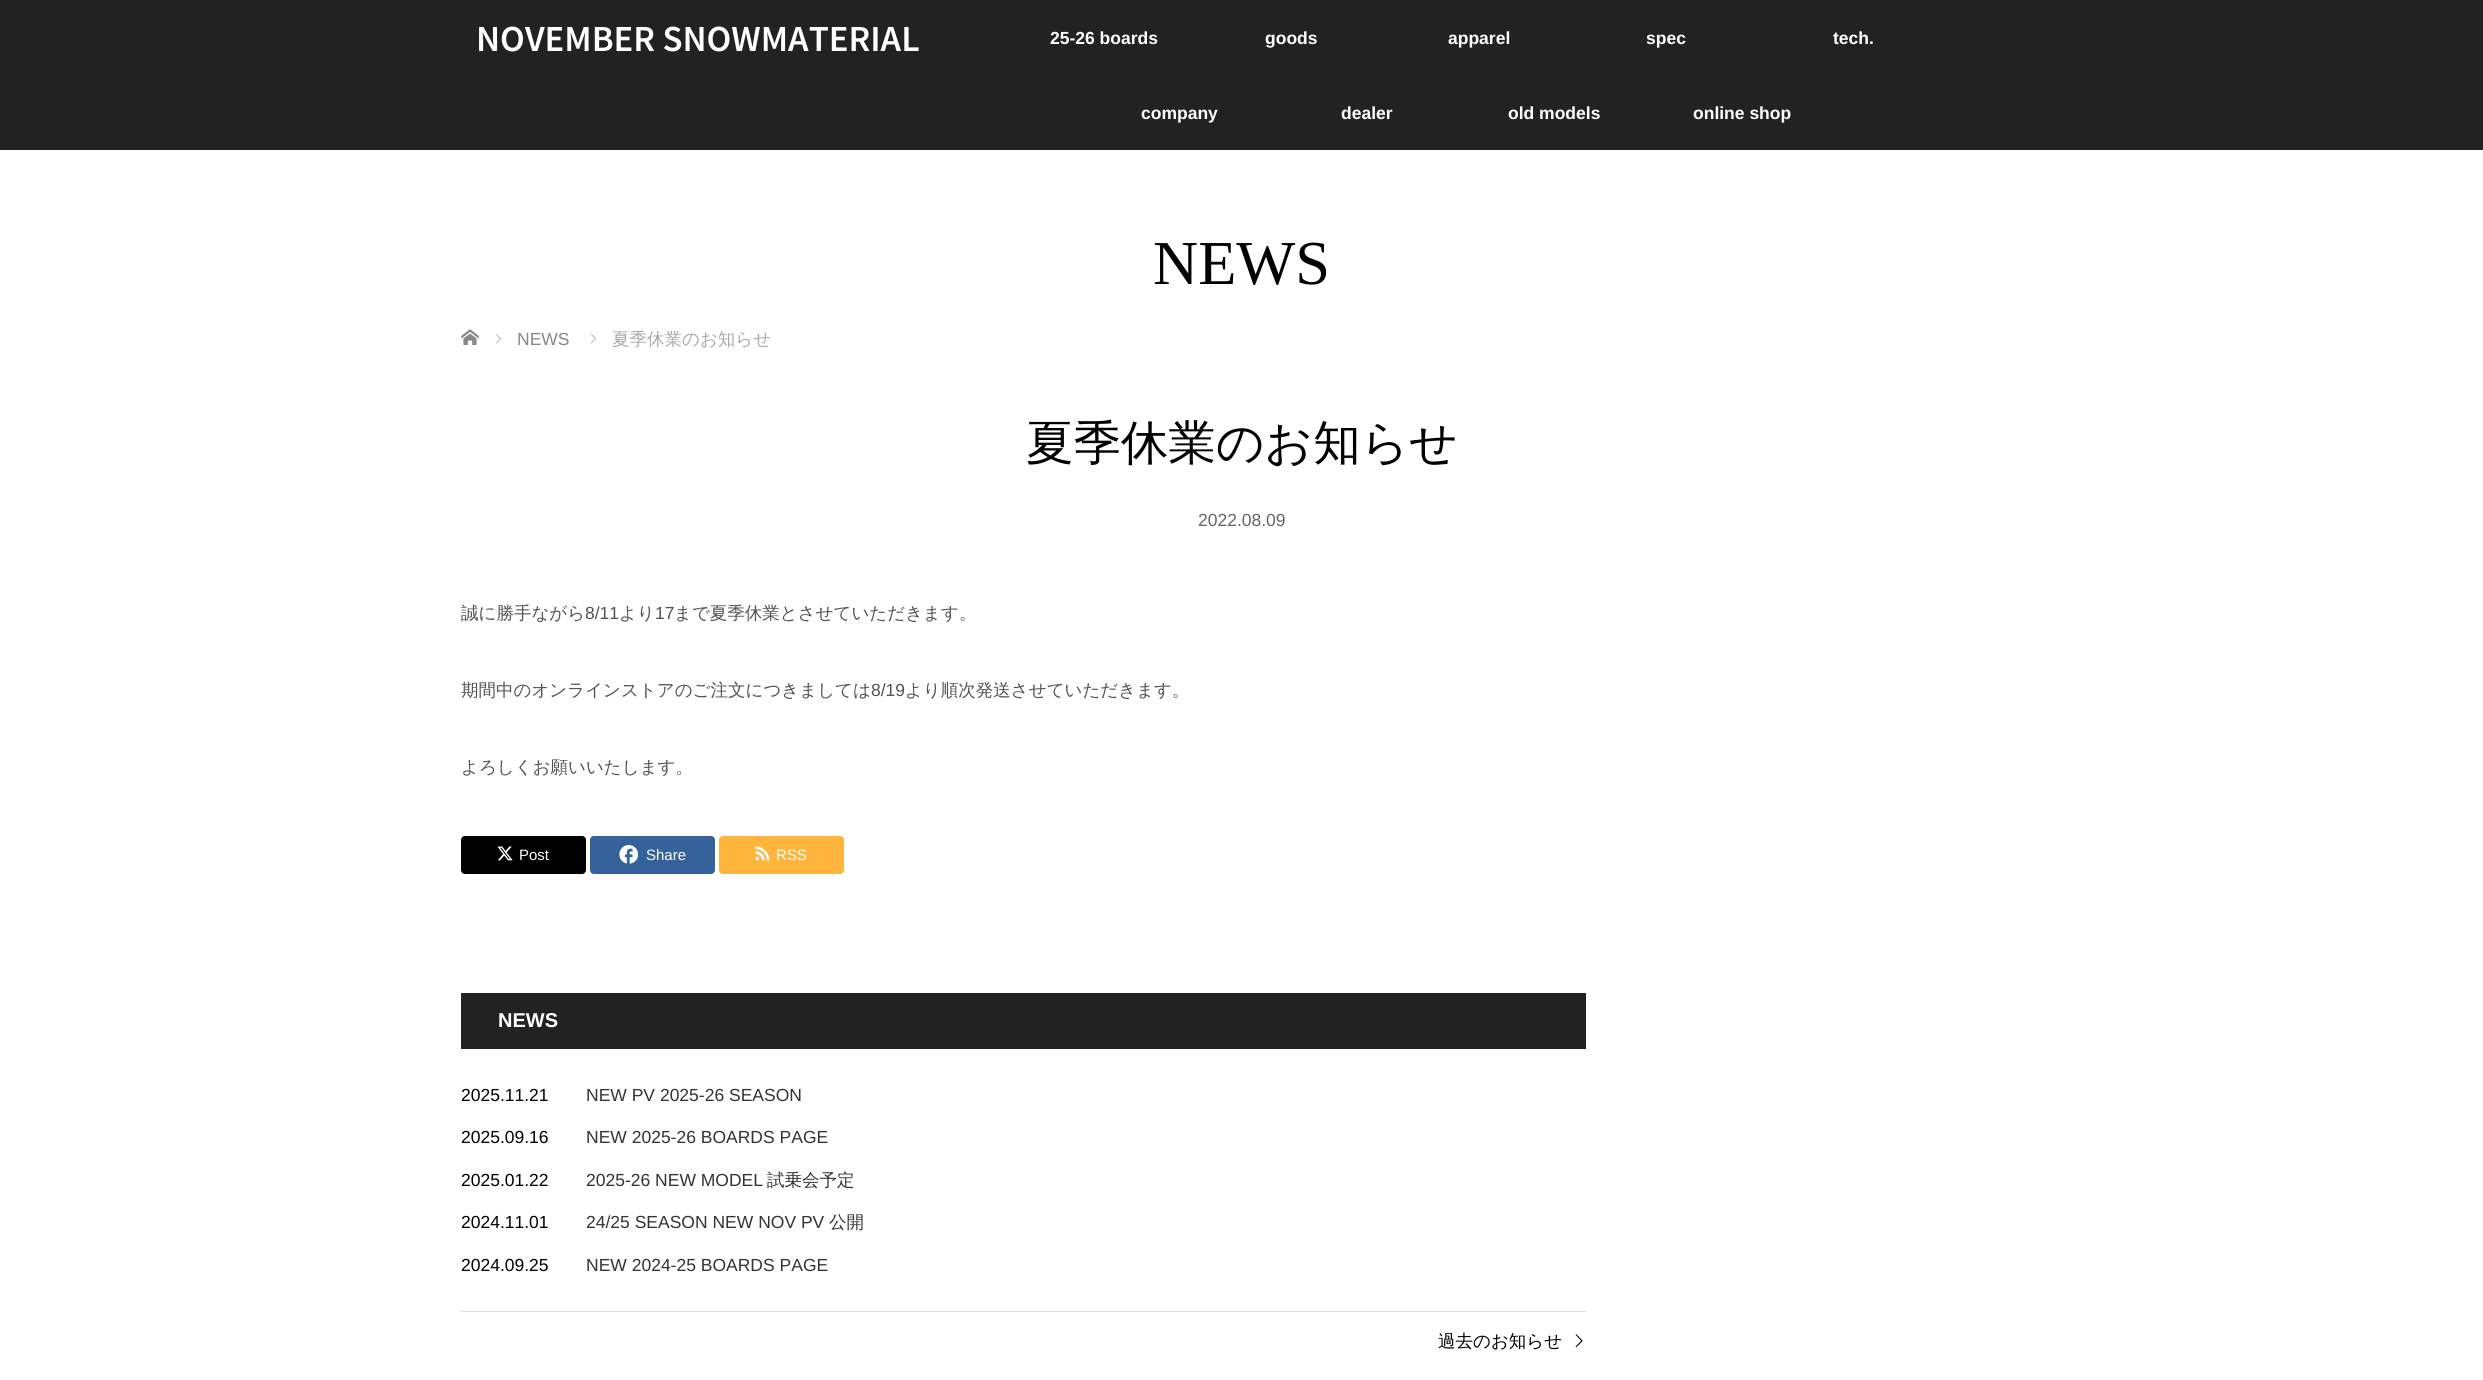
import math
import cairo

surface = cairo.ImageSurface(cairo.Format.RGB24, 2483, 1380)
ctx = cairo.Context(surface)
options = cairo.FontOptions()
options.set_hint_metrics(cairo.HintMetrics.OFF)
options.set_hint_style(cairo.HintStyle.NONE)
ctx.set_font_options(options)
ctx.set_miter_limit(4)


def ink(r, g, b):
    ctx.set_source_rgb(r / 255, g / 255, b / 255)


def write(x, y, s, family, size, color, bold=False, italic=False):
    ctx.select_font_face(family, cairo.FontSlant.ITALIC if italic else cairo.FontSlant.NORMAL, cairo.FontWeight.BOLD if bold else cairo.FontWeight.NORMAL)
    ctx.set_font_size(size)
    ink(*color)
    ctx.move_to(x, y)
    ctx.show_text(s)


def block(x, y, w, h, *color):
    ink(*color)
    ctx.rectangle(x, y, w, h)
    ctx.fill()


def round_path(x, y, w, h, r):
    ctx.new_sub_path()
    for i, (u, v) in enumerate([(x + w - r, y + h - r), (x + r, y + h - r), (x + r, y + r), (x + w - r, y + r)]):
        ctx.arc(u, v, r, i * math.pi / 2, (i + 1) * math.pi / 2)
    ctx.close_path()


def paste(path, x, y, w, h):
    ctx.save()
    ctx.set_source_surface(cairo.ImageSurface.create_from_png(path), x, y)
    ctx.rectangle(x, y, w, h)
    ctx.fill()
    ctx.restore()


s1 = dict(family="Noto Sans JP SemiBold", size=32.5, color=(255, 255, 255))
s2 = dict(family="Liberation Sans", size=17.5, color=(255, 255, 255), bold=True)
s3 = dict(family="Liberation Serif", size=62.5, color=(0, 0, 0))
s4 = dict(family="Liberation Sans", size=17.5, color=(136, 136, 136))
s5 = dict(family="WenQuanYi Zen Hei Medium", size=17.5, color=(170, 170, 170))
s6 = dict(family="WenQuanYi Zen Hei Medium", size=47.5, color=(0, 0, 0))
s7 = dict(family="Liberation Sans", size=17.5, color=(102, 102, 102))
s8 = dict(family="WenQuanYi Zen Hei Medium", size=17.5, color=(82, 82, 82))
s9 = dict(family="Liberation Sans", size=17.5, color=(82, 82, 82))
s10 = dict(family="Liberation Sans", size=15, color=(255, 255, 255))
s11 = dict(family="Liberation Sans", size=20, color=(255, 255, 255), bold=True)
s12 = dict(family="Liberation Sans", size=17.5, color=(0, 0, 0))
s13 = dict(family="Liberation Sans", size=17.5, color=(51, 51, 51))
s14 = dict(family="WenQuanYi Zen Hei Medium", size=17.5, color=(51, 51, 51))
s15 = dict(family="WenQuanYi Zen Hei Medium", size=17.5, color=(0, 0, 0))

ink(255, 255, 255)
ctx.paint()
block(0, 0, 2483, 150, 34, 34, 34)
write(476, 51, "NOVEMBER SNOWMATERIAL", **s1)
write(1050, 44, "25-26 boards", **s2)
write(1265, 44, "goods", **s2)
write(1448, 44, "apparel", **s2)
write(1646, 44, "spec", **s2)
write(1833, 44, "tech.", **s2)
write(1141, 119, "company", **s2)
write(1341, 119, "dealer", **s2)
write(1508, 119, "old models", **s2)
write(1693, 119, "online shop", **s2)
write(1153, 284, "NEWS", **s3)
paste("pic1.png", 461, 329, 18, 16)
paste("pic2.png", 495, 334, 6, 10)
write(517, 345, "NEWS", **s4)
paste("pic2.png", 590, 334, 6, 10)
write(612, 345, "夏季休業のお知らせ", **s5)
write(1026, 459, "夏季休業のお知らせ", **s6)
write(1198, 526, "2022.08.09", **s7)
write(461, 619, "誠に勝手ながら", **s8)
write(585, 619, "8/11", **s9)
write(619, 619, "より", **s8)
write(655, 619, "17", **s9)
write(674, 619, "まで夏季休業とさせていただきます。", **s8)
write(461, 696, "期間中のオンラインストアのご注文につきましては", **s8)
write(871, 696, "8/19", **s9)
write(905, 696, "より順次発送させていただきます。", **s8)
write(461, 773, "よろしくお願いいたします。", **s8)
ink(0, 0, 0)
round_path(461, 836, 125, 38, 4)
ctx.fill()
paste("pic3.png", 497, 846, 16, 15)
write(519, 860, "Post", **s10)
ink(53, 98, 154)
round_path(590, 836, 125, 38, 4)
ctx.fill()
paste("pic4.png", 619, 845, 20, 19)
write(646, 860, "Share", **s10)
ink(255, 181, 60)
round_path(719, 836, 125, 38, 4)
ctx.fill()
paste("pic5.png", 755, 846, 15, 15)
write(776, 860, "RSS", **s10)
block(461, 993, 1125, 56, 34, 34, 34)
write(498, 1027, "NEWS", **s11)
block(461, 1311, 1125, 1, 221, 221, 221)
write(461, 1101, "2025.11.21", **s12)
write(586, 1101, "NEW PV 2025-26 SEASON", **s13)
write(461, 1143, "2025.09.16", **s12)
write(586, 1143, "NEW 2025-26 BOARDS PAGE", **s13)
write(461, 1186, "2025.01.22", **s12)
write(586, 1186, "2025-26 NEW MODEL", **s13)
write(767, 1186, "試乗会予定", **s14)
write(461, 1228, "2024.11.01", **s12)
write(586, 1228, "24/25 SEASON NEW NOV PV", **s13)
write(829, 1228, "公開", **s14)
write(461, 1271, "2024.09.25", **s12)
write(586, 1271, "NEW 2024-25 BOARDS PAGE", **s13)
write(1438, 1347, "過去のお知らせ", **s15)
paste("pic6.png", 1575, 1334, 8, 14)
surface.write_to_png("screenshot.png")
